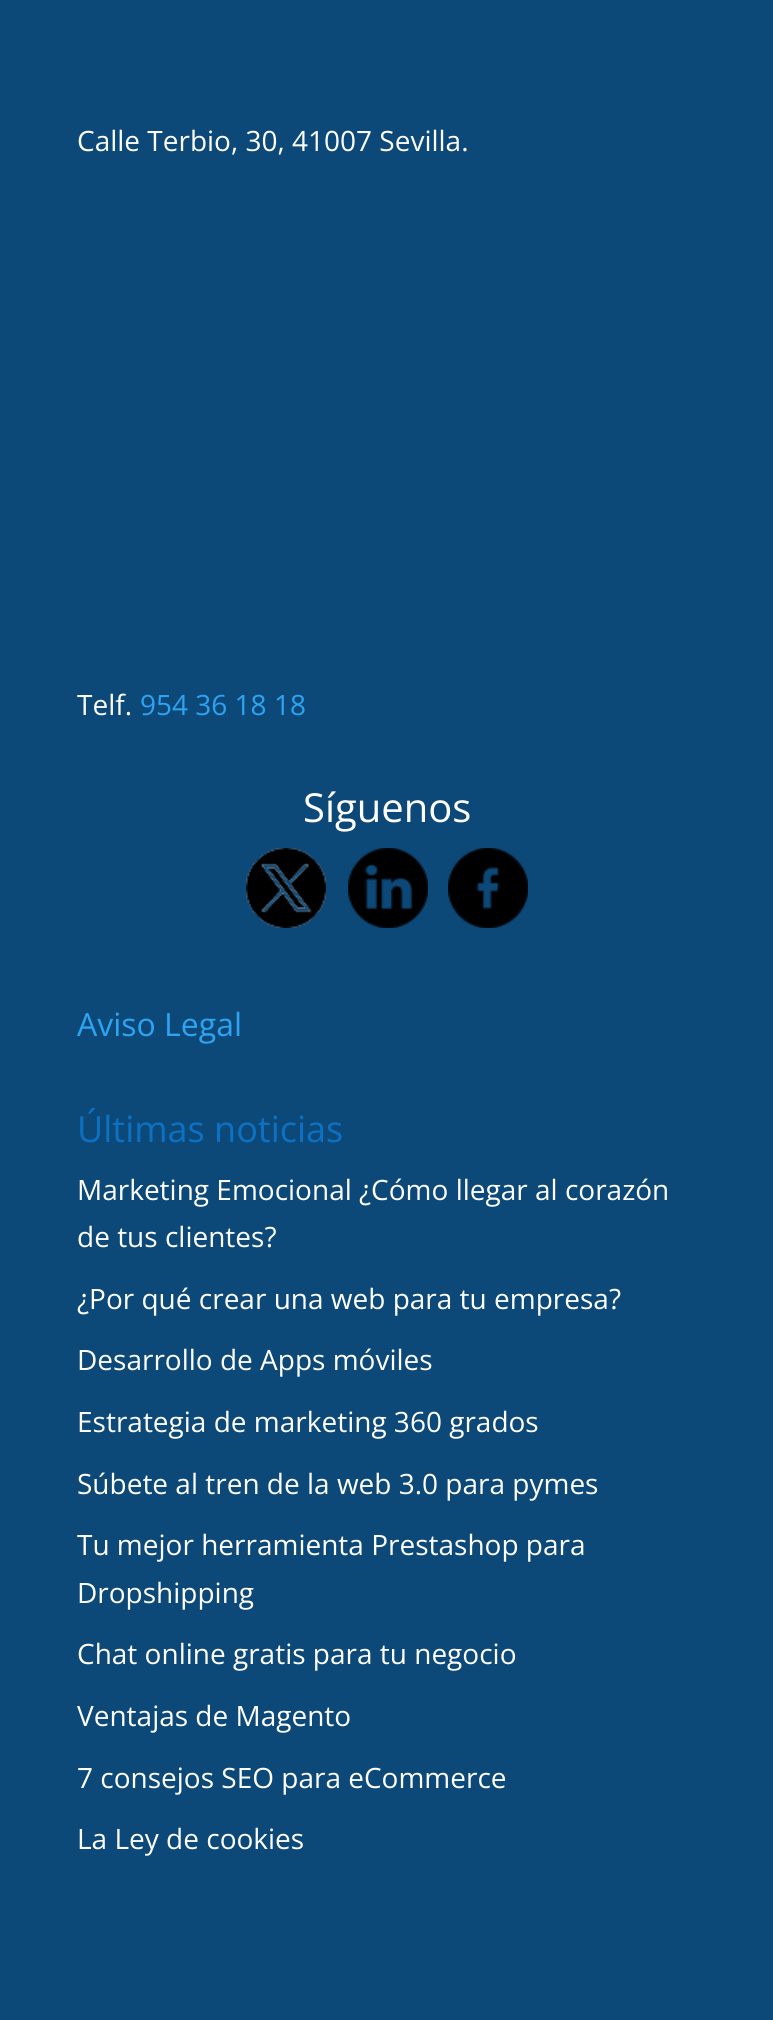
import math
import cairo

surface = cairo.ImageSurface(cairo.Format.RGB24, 773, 2020)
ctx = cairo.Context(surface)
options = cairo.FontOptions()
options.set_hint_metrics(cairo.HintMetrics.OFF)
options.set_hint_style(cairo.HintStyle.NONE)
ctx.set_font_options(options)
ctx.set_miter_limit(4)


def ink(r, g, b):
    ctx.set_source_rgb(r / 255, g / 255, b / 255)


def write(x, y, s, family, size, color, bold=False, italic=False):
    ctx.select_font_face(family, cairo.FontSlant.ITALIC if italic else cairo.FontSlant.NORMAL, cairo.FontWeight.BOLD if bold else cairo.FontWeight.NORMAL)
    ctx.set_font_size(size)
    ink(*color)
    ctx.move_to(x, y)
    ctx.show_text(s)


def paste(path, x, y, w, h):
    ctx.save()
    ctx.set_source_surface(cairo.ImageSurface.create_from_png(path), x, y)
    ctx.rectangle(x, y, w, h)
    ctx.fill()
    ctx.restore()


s1 = dict(family="Open Sans", size=28, color=(255, 255, 255))
s2 = dict(family="Open Sans", size=28, color=(46, 163, 242))
s3 = dict(family="Open Sans", size=40, color=(255, 255, 255))
s4 = dict(family="Open Sans", size=32, color=(46, 163, 242))
s5 = dict(family="Open Sans", size=36, color=(12, 113, 195))

ink(12, 73, 120)
ctx.paint()
write(77, 151, "Calle Terbio, 30, 41007 Sevilla.", **s1)
write(77, 715, "Telf.", **s1)
write(140, 715, "954 36 18 18", **s2)
write(303, 822, "Síguenos", **s3)
paste("pic1.png", 246, 848, 80, 80)
paste("pic2.png", 348, 848, 80, 80)
paste("pic3.png", 448, 848, 80, 80)
write(77, 1036, "Aviso Legal", **s4)
write(77, 1142, "Últimas noticias", **s5)
write(77, 1200, "Marketing Emocional ¿Cómo llegar al corazón", **s1)
write(77, 1247, "de tus clientes?", **s1)
write(77, 1309, "¿Por qué crear una web para tu empresa?", **s1)
write(77, 1370, "Desarrollo de Apps móviles", **s1)
write(77, 1432, "Estrategia de marketing 360 grados", **s1)
write(77, 1494, "Súbete al tren de la web 3.0 para pymes", **s1)
write(77, 1555, "Tu mejor herramienta Prestashop para", **s1)
write(77, 1603, "Dropshipping", **s1)
write(77, 1664, "Chat online gratis para tu negocio", **s1)
write(77, 1726, "Ventajas de Magento", **s1)
write(77, 1788, "7 consejos SEO para eCommerce", **s1)
write(77, 1849, "La Ley de cookies", **s1)
surface.write_to_png("screenshot.png")
